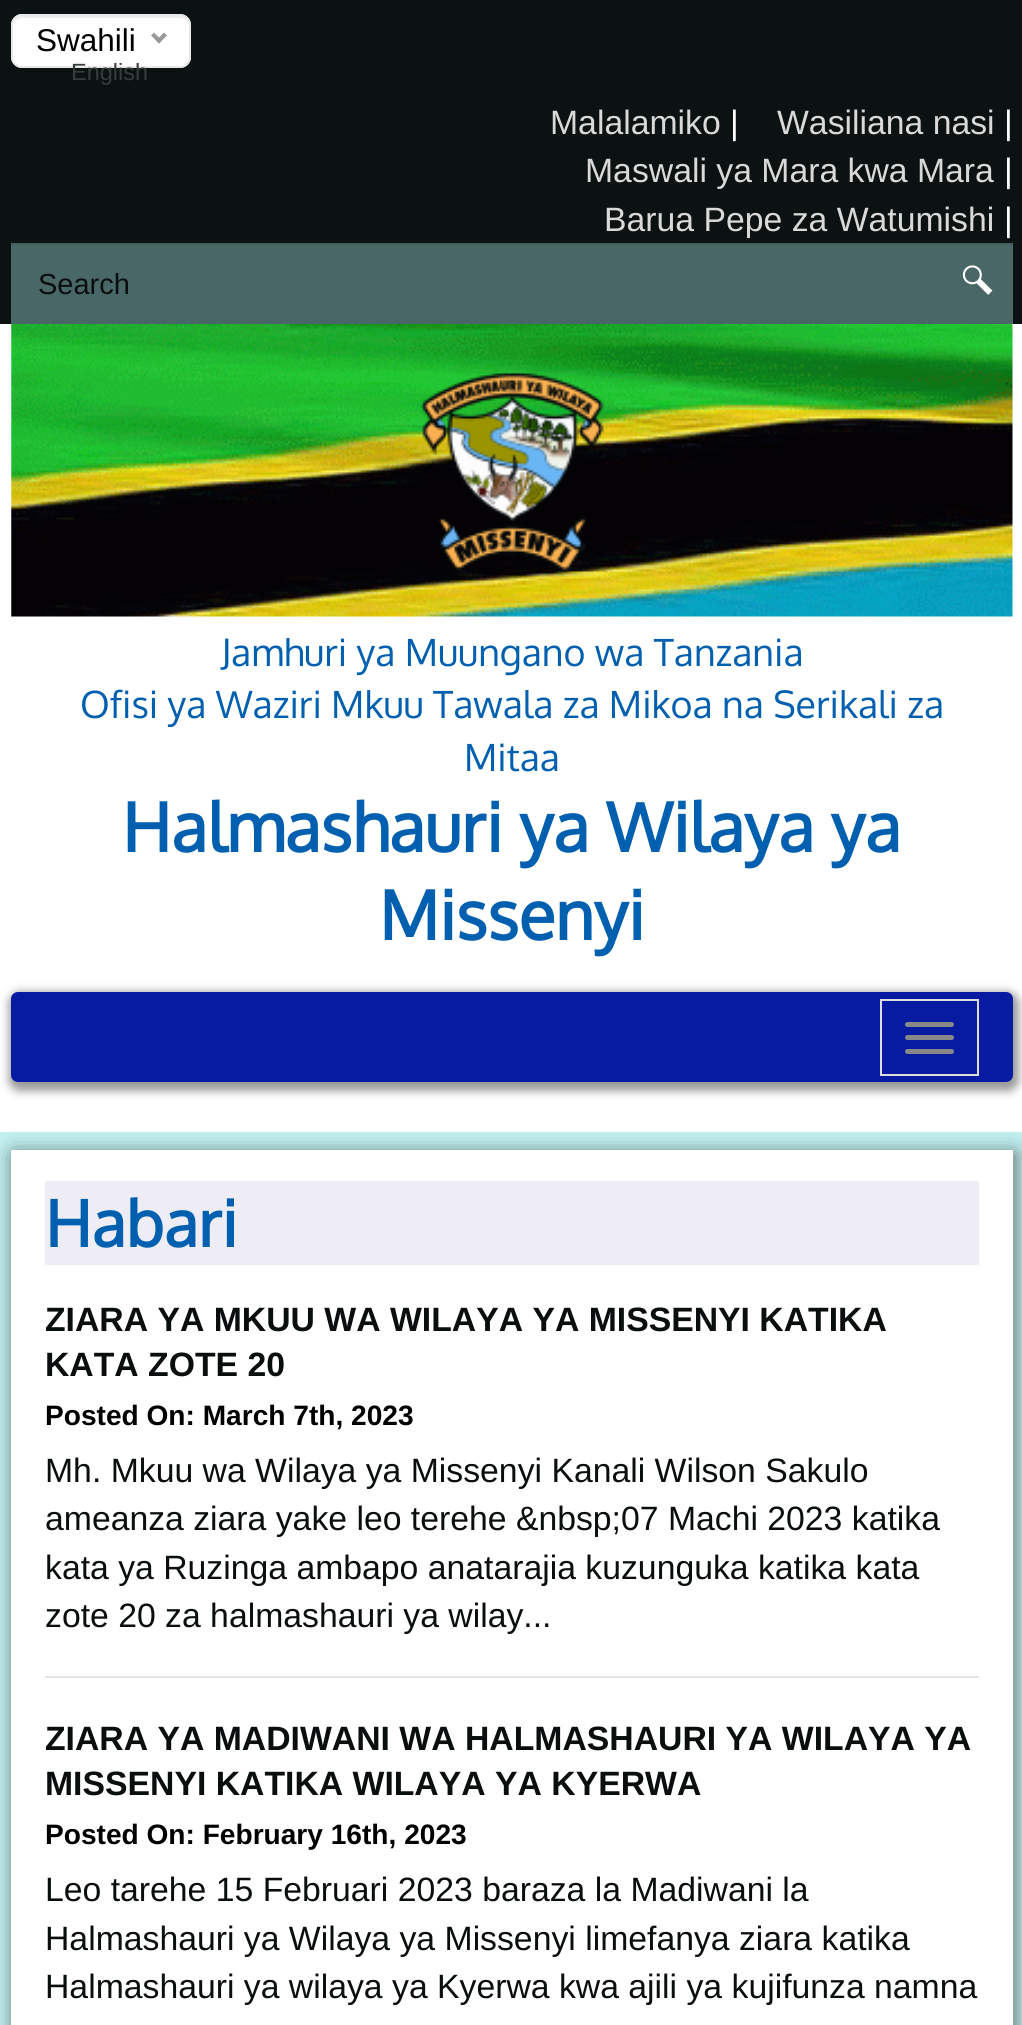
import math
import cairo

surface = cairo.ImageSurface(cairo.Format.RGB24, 1022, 2025)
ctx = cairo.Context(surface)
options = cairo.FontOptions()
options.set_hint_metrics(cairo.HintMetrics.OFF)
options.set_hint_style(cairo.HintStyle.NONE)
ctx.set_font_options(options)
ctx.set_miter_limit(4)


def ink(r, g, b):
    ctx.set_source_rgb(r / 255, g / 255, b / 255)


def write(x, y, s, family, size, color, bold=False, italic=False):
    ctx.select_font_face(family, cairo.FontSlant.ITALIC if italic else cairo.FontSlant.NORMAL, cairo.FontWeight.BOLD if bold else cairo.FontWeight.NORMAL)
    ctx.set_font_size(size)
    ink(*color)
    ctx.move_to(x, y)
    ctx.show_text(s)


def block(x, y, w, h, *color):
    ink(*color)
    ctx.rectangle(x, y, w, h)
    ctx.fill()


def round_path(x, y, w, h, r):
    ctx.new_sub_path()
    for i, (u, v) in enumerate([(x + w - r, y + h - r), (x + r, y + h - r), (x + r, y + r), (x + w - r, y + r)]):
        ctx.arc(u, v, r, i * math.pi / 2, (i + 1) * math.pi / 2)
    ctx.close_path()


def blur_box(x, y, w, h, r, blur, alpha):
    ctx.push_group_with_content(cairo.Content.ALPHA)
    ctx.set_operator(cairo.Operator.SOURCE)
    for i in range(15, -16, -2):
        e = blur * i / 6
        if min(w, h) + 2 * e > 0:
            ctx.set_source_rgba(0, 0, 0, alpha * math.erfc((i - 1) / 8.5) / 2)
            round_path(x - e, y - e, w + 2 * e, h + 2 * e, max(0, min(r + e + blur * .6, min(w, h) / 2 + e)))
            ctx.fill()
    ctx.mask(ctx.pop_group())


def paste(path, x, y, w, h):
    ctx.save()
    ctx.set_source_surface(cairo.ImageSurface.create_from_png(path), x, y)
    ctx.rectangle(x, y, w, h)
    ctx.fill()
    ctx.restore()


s1 = dict(family="Liberation Sans", size=31.5, color=(0, 0, 0))
s2 = dict(family="Liberation Sans", size=23.5, color=(54, 60, 59))
s3 = dict(family="Liberation Sans", size=33.75, color=(217, 217, 217))
s4 = dict(family="Liberation Sans", size=33.75, color=(255, 255, 255))
s5 = dict(family="Liberation Sans", size=29, color=(10, 14, 14))
s6 = dict(family="Oxygen", size=37.5, color=(0, 95, 175))
s7 = dict(family="Oxygen", size=67.5, color=(0, 95, 175), bold=True)
s8 = dict(family="Oxygen", size=64, color=(0, 95, 175), bold=True)
s9 = dict(family="Liberation Sans", size=33.75, color=(10, 14, 14), bold=True)
s10 = dict(family="Liberation Sans", size=28.1, color=(0, 0, 0), bold=True)
s11 = dict(family="Liberation Sans", size=33.75, color=(10, 14, 14))

ink(194, 242, 241)
ctx.paint()
block(0, 0, 1022, 324, 11, 18, 17)
ink(255, 255, 255)
round_path(11, 14, 180, 54, 11)
ctx.fill()
ink(236, 236, 236)
ctx.new_path()
ctx.move_to(22, 18)
ctx.line_to(180, 18)
ctx.curve_to(185, 18, 189, 22, 189, 27)
ctx.line_to(189, 25)
ctx.curve_to(189, 20, 185, 16, 180, 16)
ctx.line_to(23, 16)
ctx.curve_to(18, 16, 14, 20, 14, 25)
ctx.line_to(14, 27)
ctx.curve_to(14, 22, 18, 18, 22, 18)
ctx.close_path()
ctx.fill()
round_path(12, 15, 178, 52, 10)
ink(232, 232, 232)
ctx.stroke()
write(36, 51, "Swahili", **s1)
ink(153, 153, 153)
ctx.new_path()
ctx.move_to(164, 32.5)
ctx.line_to(167, 35.5)
ctx.line_to(159, 43.5)
ctx.line_to(156, 40.5)
ctx.close_path()
ctx.fill()
ctx.new_path()
ctx.move_to(154, 32.5)
ctx.line_to(162, 40.5)
ctx.line_to(159, 43.5)
ctx.line_to(151, 35.5)
ctx.close_path()
ctx.fill()
write(71, 80, "English", **s2)
write(550, 134, "Malalamiko", **s3)
write(730, 134, "|", **s4)
write(777, 134, "Wasiliana nasi", **s3)
write(1004, 134, "|", **s4)
write(585, 182, "Maswali ya Mara kwa Mara", **s3)
write(1004, 182, "|", **s4)
write(604, 231, "Barua Pepe za Watumishi", **s3)
write(1004, 231, "|", **s4)
block(11, 245, 1002, 79, 74, 103, 103)
block(11, 243, 1002, 2, 68, 95, 95)
write(38, 294, "Search", **s5)
paste("pic1.png", 962, 265, 31, 30)
block(0, 324, 1022, 808, 255, 255, 255)
paste("pic2.png", 11, 324, 1002, 293)
paste("pic3.png", 420, 371, 184, 202)
write(221, 666, "Jamhuri ya Muungano wa Tanzania", **s6)
write(80, 718, "Ofisi ya Waziri Mkuu Tawala za Mikoa na Serikali za", **s6)
write(464, 771, "Mitaa", **s6)
write(122, 852, "Halmashauri ya Wilaya ya", **s7)
write(379, 940, "Missenyi", **s7)
ink(153, 153, 153)
blur_box(9, 992, 1010, 99, 11, 4.5, 1)
ink(6, 27, 161)
round_path(11, 992, 1002, 90, 7)
ctx.fill()
ctx.rectangle(881, 1000, 97, 75)
ink(221, 221, 221)
ctx.stroke()
ink(136, 136, 136)
round_path(905, 1022, 49, 5, 2.5)
ctx.fill()
round_path(905, 1035, 49, 5, 2.5)
ctx.fill()
round_path(905, 1049, 49, 5, 2.5)
ctx.fill()
ink(50, 50, 50)
blur_box(14, 1154, 1001, 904, 0, 11, 0.75)
block(11, 1150, 1002, 875, 255, 255, 255)
block(45, 1181, 934, 84, 238, 237, 245)
write(45, 1247, "Habari", **s8)
block(45, 1676, 934, 2, 230, 230, 230)
write(45, 1331, "ZIARA YA MKUU WA WILAYA YA MISSENYI KATIKA", **s9)
write(45, 1376, "KATA ZOTE 20", **s9)
write(45, 1425, "Posted On: March 7th, 2023", **s10)
write(45, 1482, "Mh. Mkuu wa Wilaya ya Missenyi Kanali Wilson Sakulo", **s11)
write(45, 1530, "ameanza ziara yake leo terehe &nbsp;07 Machi 2023 katika", **s11)
write(45, 1579, "kata ya Ruzinga ambapo anatarajia kuzunguka katika kata", **s11)
write(45, 1627, "zote 20 za halmashauri ya wilay...", **s11)
write(45, 1750, "ZIARA YA MADIWANI WA HALMASHAURI YA WILAYA YA", **s9)
write(45, 1795, "MISSENYI KATIKA WILAYA YA KYERWA", **s9)
write(45, 1844, "Posted On: February 16th, 2023", **s10)
write(45, 1901, "Leo tarehe 15 Februari 2023 baraza la Madiwani la", **s11)
write(45, 1950, "Halmashauri ya Wilaya ya Missenyi limefanya ziara katika", **s11)
write(45, 1998, "Halmashauri ya wilaya ya Kyerwa kwa ajili ya kujifunza namna", **s11)
surface.write_to_png("screenshot.png")
